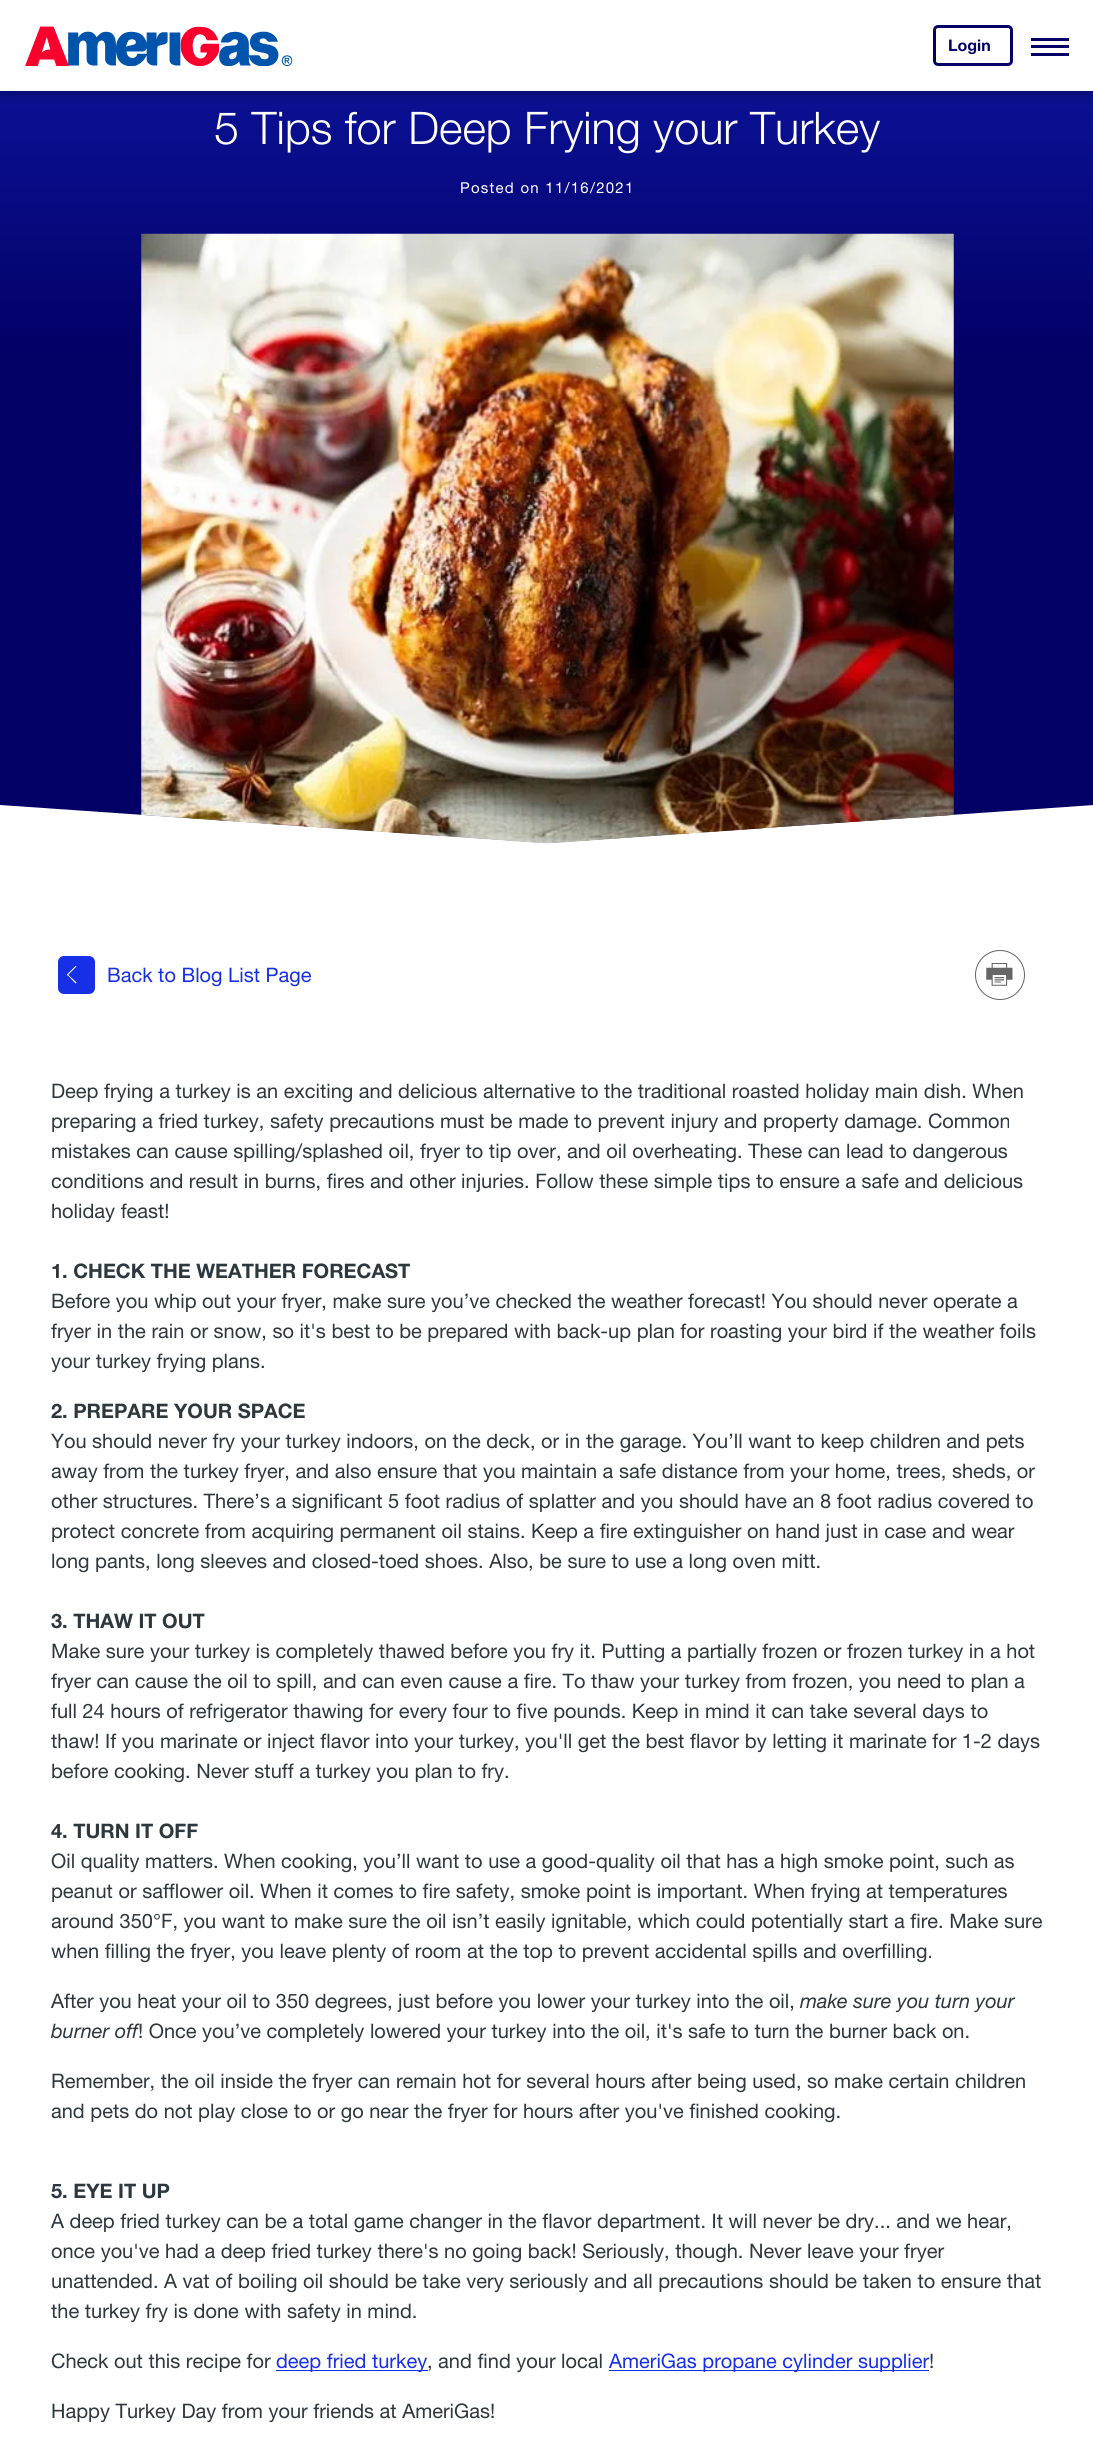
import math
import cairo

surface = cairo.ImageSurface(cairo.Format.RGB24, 1093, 2463)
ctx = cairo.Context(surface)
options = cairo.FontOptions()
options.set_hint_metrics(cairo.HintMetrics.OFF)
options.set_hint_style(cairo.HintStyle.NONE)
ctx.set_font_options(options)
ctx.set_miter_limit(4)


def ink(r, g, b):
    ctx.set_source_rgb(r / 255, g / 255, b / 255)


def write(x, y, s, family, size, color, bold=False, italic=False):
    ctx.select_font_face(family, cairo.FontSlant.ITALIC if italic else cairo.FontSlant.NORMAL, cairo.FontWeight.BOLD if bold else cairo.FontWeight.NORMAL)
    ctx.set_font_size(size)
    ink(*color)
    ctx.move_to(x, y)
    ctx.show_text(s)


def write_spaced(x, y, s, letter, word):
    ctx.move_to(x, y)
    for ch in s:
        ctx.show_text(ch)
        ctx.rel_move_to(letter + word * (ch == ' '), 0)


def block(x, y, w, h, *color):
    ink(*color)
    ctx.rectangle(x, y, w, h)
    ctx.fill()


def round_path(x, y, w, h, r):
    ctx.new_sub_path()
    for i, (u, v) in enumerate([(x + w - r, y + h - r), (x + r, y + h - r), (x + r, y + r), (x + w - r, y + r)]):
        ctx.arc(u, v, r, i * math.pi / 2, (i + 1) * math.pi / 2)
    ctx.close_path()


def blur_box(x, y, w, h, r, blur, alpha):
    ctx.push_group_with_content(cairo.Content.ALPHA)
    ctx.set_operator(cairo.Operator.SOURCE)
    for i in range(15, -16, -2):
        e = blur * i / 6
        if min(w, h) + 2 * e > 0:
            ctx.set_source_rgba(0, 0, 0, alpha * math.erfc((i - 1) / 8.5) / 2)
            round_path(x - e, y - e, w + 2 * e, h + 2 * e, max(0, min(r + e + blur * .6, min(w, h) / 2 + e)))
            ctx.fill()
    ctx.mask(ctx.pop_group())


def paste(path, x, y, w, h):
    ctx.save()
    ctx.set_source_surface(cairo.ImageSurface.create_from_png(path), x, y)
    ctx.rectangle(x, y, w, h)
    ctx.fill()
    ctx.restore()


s1 = dict(family="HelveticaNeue", size=16, color=(4, 0, 102), bold=True)
s2 = dict(family="HelveticaNeue Light", size=45, color=(255, 255, 255))
s3 = dict(family="HelveticaNeue", size=20, color=(23, 47, 230))
s4 = dict(family="HelveticaNeue", size=20, color=(45, 55, 62))
s5 = dict(family="HelveticaNeue", size=20, color=(45, 55, 62), bold=True)
s6 = dict(family="HelveticaNeue", size=20, color=(45, 55, 62), italic=True)

ink(255, 255, 255)
ctx.paint()
gradient = cairo.LinearGradient(547, -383, 547, 844)
gradient.add_color_stop_rgba(0, 0.09, 0.184, 0.902, 1)
gradient.add_color_stop_rgba(0.6, 0.012, 0, 0.4, 1)
ctx.set_source(gradient)
ctx.new_path()
ctx.move_to(547, 843)
ctx.line_to(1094, 805)
ctx.line_to(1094, 76)
ctx.line_to(0, 76)
ctx.line_to(0, 805)
ctx.close_path()
ctx.fill()
block(0, 76, 1093, 15, 255, 255, 255)
ctx.save()
ctx.rectangle(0, 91, 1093, 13)
ctx.clip()
ink(0, 0, 0)
blur_box(0, 5, 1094, 91, 0, 6, 0.25)
ctx.restore()
paste("pic1.png", 25, 26, 268, 40)
round_path(934.5, 26.5, 77, 38, 3.5)
ink(4, 0, 102)
ctx.set_line_width(3)
ctx.stroke()
write(948, 51, "Login", **s1)
block(1031, 45, 38, 3, 4, 0, 102)
block(1031, 38, 38, 3, 4, 0, 102)
block(1031, 53, 38, 3, 4, 0, 102)
write(214, 144, "5 Tips for Deep Frying your Turkey", **s2)
ctx.select_font_face("HelveticaNeue")
ctx.set_font_size(15)
write_spaced(460, 193, "Posted on 11/16/2021", 1.25, 0)
paste("pic2.png", 141, 233, 813, 611)
ink(23, 47, 230)
round_path(58, 956, 37, 38, 6)
ctx.fill()
ink(255, 255, 255)
ctx.new_path()
ctx.move_to(76.5, 982.5)
ctx.line_to(75.5, 983.5)
ctx.line_to(67, 974.5)
ctx.line_to(67.5, 974)
ctx.close_path()
ctx.fill()
ctx.new_path()
ctx.move_to(76.5, 966.5)
ctx.line_to(67.5, 975.5)
ctx.line_to(67, 974.5)
ctx.line_to(75.5, 966)
ctx.close_path()
ctx.fill()
write(107, 982, "Back to Blog List Page", **s3)
ctx.new_path()
ctx.arc(1000, 975, 24.5, 0, 2 * math.pi)
ink(102, 102, 102)
ctx.set_line_width(1)
ctx.stroke()
paste("pic3.png", 986, 963, 27, 23)
write(51, 1098, "Deep frying a turkey is an exciting and delicious alternative to the traditional roasted holiday main dish. When", **s4)
write(51, 1128, "preparing a fried turkey, safety precautions must be made to prevent injury and property damage. Common", **s4)
write(51, 1158, "mistakes can cause spilling/splashed oil, fryer to tip over, and oil overheating. These can lead to dangerous", **s4)
write(51, 1188, "conditions and result in burns, fires and other injuries. Follow these simple tips to ensure a safe and delicious", **s4)
write(51, 1218, "holiday feast!", **s4)
write(51, 1278, "1. CHECK THE WEATHER FORECAST", **s5)
write(51, 1308, "Before you whip out your fryer, make sure you’ve checked the weather forecast! You should never operate a", **s4)
write(51, 1338, "fryer in the rain or snow, so it's best to be prepared with back-up plan for roasting your bird if the weather foils", **s4)
write(51, 1368, "your turkey frying plans.", **s4)
write(51, 1418, "2. PREPARE YOUR SPACE", **s5)
write(51, 1448, "You should never fry your turkey indoors, on the deck, or in the garage. You’ll want to keep children and pets", **s4)
write(51, 1478, "away from the turkey fryer, and also ensure that you maintain a safe distance from your home, trees, sheds, or", **s4)
write(51, 1508, "other structures. There’s a significant 5 foot radius of splatter and you should have an 8 foot radius covered to", **s4)
write(51, 1538, "protect concrete from acquiring permanent oil stains. Keep a fire extinguisher on hand just in case and wear", **s4)
write(51, 1568, "long pants, long sleeves and closed-toed shoes. Also, be sure to use a long oven mitt.", **s4)
write(51, 1628, "3. THAW IT OUT", **s5)
write(51, 1658, "Make sure your turkey is completely thawed before you fry it. Putting a partially frozen or frozen turkey in a hot", **s4)
write(51, 1688, "fryer can cause the oil to spill, and can even cause a fire. To thaw your turkey from frozen, you need to plan a", **s4)
write(51, 1718, "full 24 hours of refrigerator thawing for every four to five pounds. Keep in mind it can take several days to", **s4)
write(51, 1748, "thaw! If you marinate or inject flavor into your turkey, you'll get the best flavor by letting it marinate for 1-2 days", **s4)
write(51, 1778, "before cooking. Never stuff a turkey you plan to fry.", **s4)
write(51, 1838, "4. TURN IT OFF", **s5)
write(51, 1868, "Oil quality matters. When cooking, you’ll want to use a good-quality oil that has a high smoke point, such as", **s4)
write(51, 1898, "peanut or safflower oil. When it comes to fire safety, smoke point is important. When frying at temperatures", **s4)
write(51, 1928, "around 350°F, you want to make sure the oil isn’t easily ignitable, which could potentially start a fire. Make sure", **s4)
write(51, 1958, "when filling the fryer, you leave plenty of room at the top to prevent accidental spills and overfilling.", **s4)
write(51, 2008, "After you heat your oil to 350 degrees, just before you lower your turkey into the oil,", **s4)
write(800, 2008, "make sure you turn your", **s6)
write(51, 2038, "burner off", **s6)
write(138, 2038, "! Once you’ve completely lowered your turkey into the oil, it's safe to turn the burner back on.", **s4)
write(51, 2088, "Remember, the oil inside the fryer can remain hot for several hours after being used, so make certain children", **s4)
write(51, 2118, "and pets do not play close to or go near the fryer for hours after you've finished cooking.", **s4)
write(51, 2198, "5. EYE IT UP", **s5)
write(51, 2228, "A deep fried turkey can be a total game changer in the flavor department. It will never be dry... and we hear,", **s4)
write(51, 2258, "once you've had a deep fried turkey there's no going back! Seriously, though. Never leave your fryer", **s4)
write(51, 2288, "unattended. A vat of boiling oil should be take very seriously and all precautions should be taken to ensure that", **s4)
write(51, 2318, "the turkey fry is done with safety in mind.", **s4)
write(51, 2368, "Check out this recipe for", **s4)
block(276, 2370, 152, 1, 23, 47, 230)
write(276, 2368, "deep fried turkey", **s3)
write(427, 2368, ", and find your local", **s4)
block(609, 2370, 320, 1, 23, 47, 230)
write(609, 2368, "AmeriGas propane cylinder supplier", **s3)
write(929, 2368, "!", **s4)
write(51, 2418, "Happy Turkey Day from your friends at AmeriGas!", **s4)
surface.write_to_png("screenshot.png")
